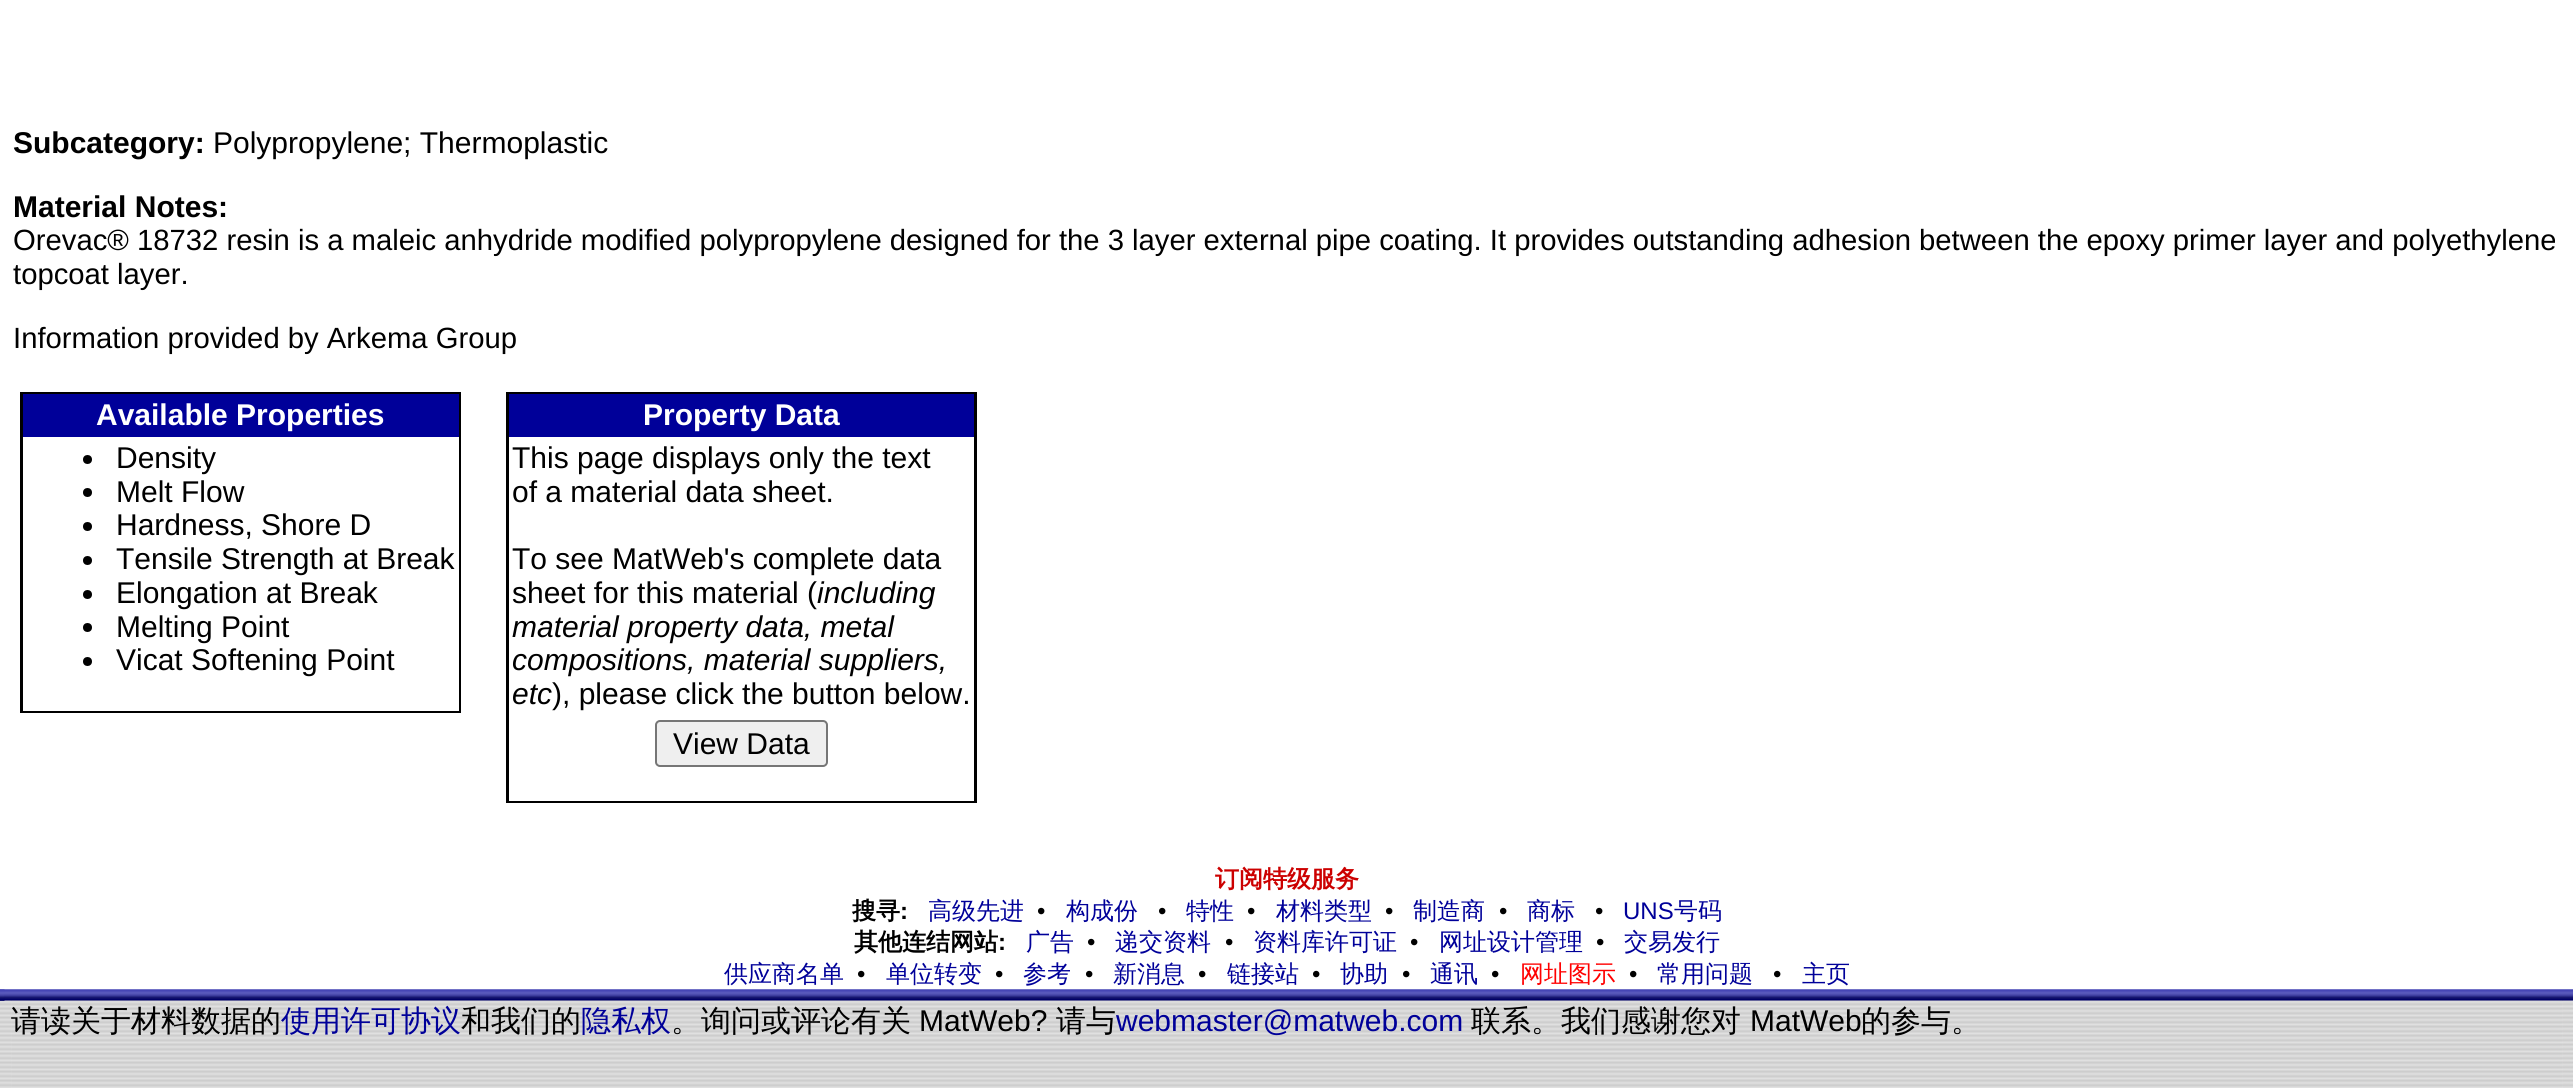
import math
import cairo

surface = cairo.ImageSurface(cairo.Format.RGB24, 2573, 1088)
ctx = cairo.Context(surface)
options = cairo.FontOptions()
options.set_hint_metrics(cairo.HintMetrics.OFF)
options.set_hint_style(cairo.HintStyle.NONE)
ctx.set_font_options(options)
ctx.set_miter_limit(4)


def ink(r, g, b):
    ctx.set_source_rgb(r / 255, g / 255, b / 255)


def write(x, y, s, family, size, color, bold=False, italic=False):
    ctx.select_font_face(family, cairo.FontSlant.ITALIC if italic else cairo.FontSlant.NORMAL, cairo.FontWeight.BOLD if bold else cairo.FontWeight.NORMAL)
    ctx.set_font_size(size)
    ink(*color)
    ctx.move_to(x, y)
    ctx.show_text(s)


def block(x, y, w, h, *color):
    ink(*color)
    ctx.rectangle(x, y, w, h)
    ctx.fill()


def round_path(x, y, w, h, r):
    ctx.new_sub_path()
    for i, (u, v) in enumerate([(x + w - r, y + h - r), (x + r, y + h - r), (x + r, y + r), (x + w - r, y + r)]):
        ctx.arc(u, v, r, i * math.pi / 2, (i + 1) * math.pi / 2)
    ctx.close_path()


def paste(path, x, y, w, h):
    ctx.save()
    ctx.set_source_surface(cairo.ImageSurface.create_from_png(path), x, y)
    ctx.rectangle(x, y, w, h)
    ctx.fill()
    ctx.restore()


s1 = dict(family="Liberation Sans", size=30, color=(0, 0, 0), bold=True)
s2 = dict(family="Liberation Sans", size=30, color=(0, 0, 0))
s3 = dict(family="Liberation Sans", size=29.25, color=(0, 0, 0))
s4 = dict(family="Liberation Sans", size=30, color=(255, 255, 255), bold=True)
s5 = dict(family="Liberation Sans", size=30, color=(0, 0, 0), italic=True)
s6 = dict(family="WenQuanYi Zen Hei", size=24, color=(204, 0, 0), bold=True)
s7 = dict(family="WenQuanYi Zen Hei", size=24, color=(0, 0, 0), bold=True)
s8 = dict(family="Liberation Sans", size=24, color=(0, 0, 0), bold=True)
s9 = dict(family="WenQuanYi Zen Hei Medium", size=24, color=(0, 0, 153))
s10 = dict(family="Liberation Sans", size=24, color=(0, 0, 0))
s11 = dict(family="Liberation Sans", size=24, color=(0, 0, 153))
s12 = dict(family="WenQuanYi Zen Hei Medium", size=24, color=(255, 0, 0))
s13 = dict(family="WenQuanYi Zen Hei Medium", size=30, color=(0, 0, 0))
s14 = dict(family="WenQuanYi Zen Hei Medium", size=30, color=(0, 0, 153))
s15 = dict(family="Liberation Sans", size=30, color=(0, 0, 153))

ink(255, 255, 255)
ctx.paint()
write(13, 153, "Subcategory:", **s1)
write(213, 153, "Polypropylene; Thermoplastic", **s2)
write(13, 217, "Material Notes:", **s1)
write(13, 250, "Orevac® 18732 resin is a maleic anhydride modified polypropylene designed for the 3 layer external pipe coating. It provides outstanding adhesion between the epoxy primer layer and polyethylene", **s3)
write(13, 284, "topcoat layer.", **s3)
write(13, 348, "Information provided by Arkema Group", **s3)
block(20, 392, 441, 321, 0, 0, 0)
block(23, 437, 436, 274, 255, 255, 255)
block(23, 394, 436, 43, 0, 0, 153)
write(96, 425, "Available Properties", **s4)
ink(0, 0, 0)
ctx.new_path()
ctx.arc(87.5, 459.5, 4.5, 0, 2 * math.pi)
ctx.fill()
write(116, 468, "Density", **s2)
ctx.new_path()
ctx.arc(87.5, 492.5, 4.5, 0, 2 * math.pi)
ctx.fill()
write(116, 502, "Melt Flow", **s2)
ctx.new_path()
ctx.arc(87.5, 526.5, 4.5, 0, 2 * math.pi)
ctx.fill()
write(116, 535, "Hardness, Shore D", **s2)
ctx.new_path()
ctx.arc(87.5, 560.5, 4.5, 0, 2 * math.pi)
ctx.fill()
write(116, 569, "Tensile Strength at Break", **s2)
ctx.new_path()
ctx.arc(87.5, 594.5, 4.5, 0, 2 * math.pi)
ctx.fill()
write(116, 603, "Elongation at Break", **s2)
ctx.new_path()
ctx.arc(87.5, 627.5, 4.5, 0, 2 * math.pi)
ctx.fill()
write(116, 637, "Melting Point", **s2)
ctx.new_path()
ctx.arc(87.5, 661.5, 4.5, 0, 2 * math.pi)
ctx.fill()
write(116, 670, "Vicat Softening Point", **s2)
block(506, 392, 471, 411, 0, 0, 0)
block(509, 437, 465, 364, 255, 255, 255)
block(509, 394, 465, 43, 0, 0, 153)
write(643, 425, "Property Data", **s4)
write(512, 468, "This page displays only the text", **s2)
write(512, 502, "of a material data sheet.", **s2)
write(512, 569, "To see MatWeb's complete data", **s2)
write(512, 603, "sheet for this material (", **s2)
write(817, 603, "including", **s5)
write(512, 637, "material property data, metal", **s5)
write(512, 670, "compositions, material suppliers,", **s5)
write(512, 704, "etc", **s5)
write(552, 704, "), please click the button below.", **s2)
ink(239, 239, 239)
round_path(656, 721, 171, 45, 4)
ctx.fill_preserve()
ink(118, 118, 118)
ctx.stroke()
write(673, 754, "View Data", **s2)
write(1215, 887, "订阅特级服务", **s6)
write(852, 919, "搜寻", **s7)
write(900, 919, ":", **s8)
write(928, 919, "高级先进", **s9)
write(1037, 919, "•", **s10)
write(1066, 919, "构成份", **s9)
write(1158, 919, "•", **s10)
write(1186, 919, "特性", **s9)
write(1247, 919, "•", **s10)
write(1276, 919, "材料类型", **s9)
write(1385, 919, "•", **s10)
write(1413, 919, "制造商", **s9)
write(1499, 919, "•", **s10)
write(1527, 919, "商标", **s9)
write(1595, 919, "•", **s10)
write(1623, 919, "UNS", **s11)
write(1674, 919, "号码", **s9)
write(854, 950, "其他连结网站", **s7)
write(998, 950, ":", **s8)
write(1026, 950, "广告", **s9)
write(1087, 950, "•", **s10)
write(1115, 950, "递交资料", **s9)
write(1225, 950, "•", **s10)
write(1253, 950, "资料库许可证", **s9)
write(1410, 950, "•", **s10)
write(1439, 950, "网址设计管理", **s9)
write(1596, 950, "•", **s10)
write(1624, 950, "交易发行", **s9)
write(724, 982, "供应商名单", **s9)
write(857, 982, "•", **s10)
write(886, 982, "单位转变", **s9)
write(995, 982, "•", **s10)
write(1023, 982, "参考", **s9)
write(1085, 982, "•", **s10)
write(1113, 982, "新消息", **s9)
write(1198, 982, "•", **s10)
write(1227, 982, "链接站", **s9)
write(1312, 982, "•", **s10)
write(1340, 982, "协助", **s9)
write(1402, 982, "•", **s10)
write(1430, 982, "通讯", **s9)
write(1491, 982, "•", **s10)
write(1520, 982, "网址图示", **s12)
write(1629, 982, "•", **s10)
write(1657, 982, "常用问题", **s9)
write(1773, 982, "•", **s10)
write(1802, 982, "主页", **s9)
paste("pic1.png", 0, 989, 2573, 12)
paste("pic3.png", 0, 1000, 12, 88)
paste("pic2.png", 0, 989, 5, 12)
paste("pic4.png", 11, 1000, 2552, 88)
write(11, 1031, "请读关于材料数据的", **s13)
write(281, 1031, "使用许可协议", **s14)
write(461, 1031, "和我们的", **s13)
write(581, 1031, "隐私权", **s14)
write(671, 1031, "。询问或评论有关", **s13)
write(919, 1031, "MatWeb?", **s2)
write(1056, 1031, "请与", **s13)
write(1116, 1031, "webmaster@matweb.com", **s15)
write(1471, 1031, "联系。我们感谢您对", **s13)
write(1750, 1031, "MatWeb", **s2)
write(1861, 1031, "的参与。", **s13)
paste("pic5.png", 2562, 1000, 11, 88)
surface.write_to_png("screenshot.png")
